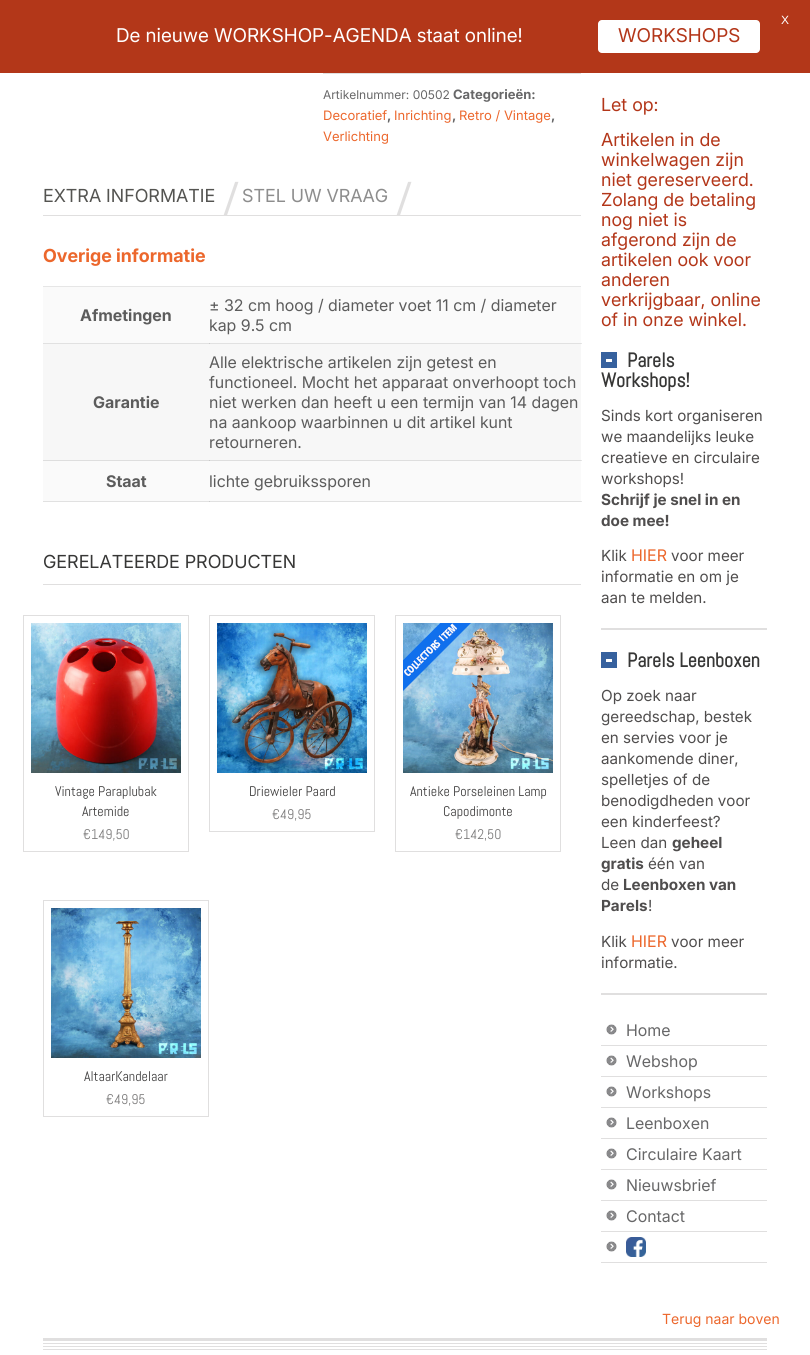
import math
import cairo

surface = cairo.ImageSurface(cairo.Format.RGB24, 810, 1355)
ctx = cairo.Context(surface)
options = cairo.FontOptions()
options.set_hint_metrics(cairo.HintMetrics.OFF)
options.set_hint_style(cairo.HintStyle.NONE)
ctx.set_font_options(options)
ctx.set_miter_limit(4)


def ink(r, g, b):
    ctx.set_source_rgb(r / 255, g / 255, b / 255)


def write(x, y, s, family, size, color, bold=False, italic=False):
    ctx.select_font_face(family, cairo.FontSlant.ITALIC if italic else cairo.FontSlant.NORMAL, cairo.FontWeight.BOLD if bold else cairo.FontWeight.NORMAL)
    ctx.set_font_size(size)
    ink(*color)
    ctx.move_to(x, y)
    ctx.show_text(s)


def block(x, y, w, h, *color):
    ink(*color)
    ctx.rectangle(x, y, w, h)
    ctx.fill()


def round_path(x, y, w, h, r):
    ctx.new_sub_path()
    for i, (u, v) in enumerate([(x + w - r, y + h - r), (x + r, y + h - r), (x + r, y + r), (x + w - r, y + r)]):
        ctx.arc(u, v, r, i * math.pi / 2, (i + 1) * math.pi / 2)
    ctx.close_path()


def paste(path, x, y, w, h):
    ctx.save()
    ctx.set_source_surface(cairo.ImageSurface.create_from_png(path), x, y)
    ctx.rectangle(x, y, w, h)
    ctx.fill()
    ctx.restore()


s1 = dict(family="Liberation Sans", size=12, color=(255, 255, 255))
s2 = dict(family="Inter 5", size=19, color=(255, 255, 255))
s3 = dict(family="Inter 5", size=19, color=(179, 54, 25))
s4 = dict(family="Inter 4", size=12, color=(103, 103, 104))
s5 = dict(family="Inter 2", size=13, color=(103, 103, 104), bold=True)
s6 = dict(family="Inter 4", size=13, color=(236, 103, 44))
s7 = dict(family="Inter", size=18, color=(84, 84, 81))
s8 = dict(family="Liberation Serif", size=70, color=(224, 223, 223))
s9 = dict(family="Inter", size=18, color=(141, 141, 141))
s10 = dict(family="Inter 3", size=18, color=(236, 103, 44), bold=True)
s11 = dict(family="Inter 4", size=16, color=(92, 92, 92), bold=True)
s12 = dict(family="Inter 3", size=16, color=(92, 92, 92))
s13 = dict(family="Inter", size=18, color=(55, 55, 54))
s14 = dict(family="Abel", size=14, color=(62, 61, 61))
s15 = dict(family="Abel", size=14, color=(124, 123, 123))
s16 = dict(family="Inter", size=18, color=(179, 54, 25))
s17 = dict(family="Abel", size=20, color=(55, 55, 54), bold=True)
s18 = dict(family="Inter 2", size=15.25, color=(79, 77, 77))
s19 = dict(family="Inter", size=15.25, color=(79, 77, 77), bold=True)
s20 = dict(family="Inter 3", size=16, color=(236, 103, 44))
s21 = dict(family="Inter 3", size=16, color=(103, 103, 104))
s22 = dict(family="Inter 4", size=14, color=(236, 103, 44))

ink(255, 255, 255)
ctx.paint()
block(581, 343, 1, 1, 230, 230, 230)
block(581, 460, 1, 1, 230, 230, 230)
block(581, 501, 1, 1, 230, 230, 230)
block(0, 0, 810, 73, 179, 55, 25)
write(781, 24, "X", **s1)
write(116, 42, "De nieuwe WORKSHOP-AGENDA staat online!", **s2)
round_path(598, 20, 162, 33, 4)
ctx.fill()
write(618, 42, "WORKSHOPS", **s3)
block(323, 73, 258, 1, 224, 223, 223)
write(323, 99, "Artikelnummer: 00502", **s4)
write(453, 99, "Categorieën:", **s5)
write(323, 120, "Decoratief", **s6)
write(387, 120, ",", **s5)
write(394, 120, "Inrichting", **s6)
write(452, 120, ",", **s5)
write(459, 120, "Retro / Vintage", **s6)
write(551, 120, ",", **s5)
write(323, 141, "Verlichting", **s6)
block(43, 215, 538, 1, 224, 223, 223)
write(43, 202, "EXTRA INFORMATIE", **s7)
ctx.save()
ctx.rectangle(43, 177, 538, 38)
ctx.clip()
write(219, 228, "/", **s8)
ctx.restore()
write(242, 202, "STEL UW VRAAG", **s9)
ctx.save()
ctx.rectangle(43, 177, 538, 38)
ctx.clip()
write(392, 228, "/", **s8)
ctx.restore()
write(43, 262, "Overige informatie", **s10)
block(43, 286, 538, 1, 230, 230, 230)
block(43, 287, 538, 56, 250, 250, 250)
block(43, 343, 538, 1, 225, 225, 225)
block(209, 343, 1, 1, 203, 203, 203)
write(80, 321, "Afmetingen", **s11)
write(209, 311, "± 32 cm hoog / diameter voet 11 cm / diameter", **s12)
write(209, 331, "kap 9.5 cm", **s12)
block(43, 344, 538, 116, 247, 247, 247)
block(43, 460, 538, 1, 222, 222, 222)
block(209, 460, 1, 1, 200, 200, 200)
write(93, 408, "Garantie", **s11)
write(209, 368, "Alle elektrische artikelen zijn getest en", **s12)
write(209, 388, "functioneel. Mocht het apparaat onverhoopt toch", **s12)
write(209, 408, "niet werken dan heeft u een termijn van 14 dagen", **s12)
write(209, 428, "na aankoop waarbinnen u dit artikel kunt", **s12)
write(209, 448, "retourneren.", **s12)
block(43, 461, 538, 40, 250, 250, 250)
block(43, 501, 538, 1, 225, 225, 225)
block(209, 501, 1, 1, 203, 203, 203)
write(106, 487, "Staat", **s11)
write(209, 487, "lichte gebruikssporen", **s12)
block(43, 584, 538, 1, 224, 223, 223)
write(43, 568, "GERELATEERDE PRODUCTEN", **s13)
ctx.rectangle(23.5, 615.5, 165, 236)
ink(224, 223, 223)
ctx.set_line_width(1)
ctx.stroke()
paste("pic1.png", 31, 623, 150, 150)
write(55, 796, "Vintage Paraplubak", **s14)
write(82, 816, "Artemide", **s14)
write(83, 839, "€149,50", **s15)
ctx.rectangle(209.5, 615.5, 165, 216)
ink(224, 223, 223)
ctx.stroke()
paste("pic2.png", 217, 623, 150, 150)
write(249, 796, "Driewieler Paard", **s14)
write(272, 819, "€49,95", **s15)
ctx.rectangle(395.5, 615.5, 165, 236)
ink(224, 223, 223)
ctx.stroke()
paste("pic3.png", 403, 623, 150, 150)
paste("pic4.png", 403, 623, 68, 68)
write(410, 796, "Antieke Porseleinen Lamp", **s14)
write(443, 816, "Capodimonte", **s14)
write(455, 839, "€142,50", **s15)
ctx.rectangle(43.5, 900.5, 165, 216)
ink(224, 223, 223)
ctx.stroke()
paste("pic5.png", 51, 908, 150, 150)
write(84, 1081, "AltaarKandelaar", **s14)
write(106, 1104, "€49,95", **s15)
write(601, 111, "Let op:", **s16)
write(601, 146, "Artikelen in de", **s16)
write(601, 166, "winkelwagen zijn", **s16)
write(601, 186, "niet gereserveerd.", **s16)
write(601, 206, "Zolang de betaling", **s16)
write(601, 226, "nog niet is", **s16)
write(601, 246, "afgerond zijn de", **s16)
write(601, 266, "artikelen ook voor", **s16)
write(601, 286, "anderen", **s16)
write(601, 306, "verkrijgbaar, online", **s16)
write(601, 326, "of in onze winkel.", **s16)
block(601, 352, 16, 16, 54, 97, 158)
block(606, 359, 6, 3, 255, 255, 255)
write(627, 367, "Parels", **s17)
write(601, 387, "Workshops!", **s17)
write(601, 421, "Sinds kort organiseren", **s18)
write(601, 442, "we maandelijks leuke", **s18)
write(601, 463, "creatieve en circulaire", **s18)
write(601, 484, "workshops!", **s18)
write(601, 505, "Schrijf je snel in en", **s19)
write(601, 526, "doe mee!", **s19)
write(601, 561, "Klik", **s18)
write(631, 561, "HIER", **s20)
write(671, 561, "voor meer", **s18)
write(601, 582, "informatie en om je", **s18)
write(601, 603, "aan te melden.", **s18)
block(601, 628, 166, 2, 224, 223, 223)
block(601, 652, 16, 16, 54, 97, 158)
block(606, 659, 6, 3, 255, 255, 255)
write(627, 667, "Parels Leenboxen", **s17)
write(601, 701, "Op zoek naar", **s18)
write(601, 722, "gereedschap, bestek", **s18)
write(601, 743, "en servies voor je", **s18)
write(601, 764, "aankomende diner,", **s18)
write(601, 785, "spelletjes of de", **s18)
write(601, 806, "benodigdheden voor", **s18)
write(601, 827, "een kinderfeest?", **s18)
write(601, 848, "Leen dan", **s18)
write(672, 848, "geheel", **s19)
write(601, 869, "gratis", **s19)
write(648, 869, "één van", **s18)
write(601, 890, "de", **s18)
write(623, 890, "Leenboxen van", **s19)
write(601, 911, "Parels", **s19)
write(648, 911, "!", **s18)
write(601, 947, "Klik", **s18)
write(631, 947, "HIER", **s20)
write(671, 947, "voor meer", **s18)
write(601, 968, "informatie.", **s18)
block(601, 993, 166, 2, 224, 223, 223)
paste("pic6.png", 606, 1024, 11, 11)
block(601, 1045, 166, 1, 224, 223, 223)
write(626, 1036, "Home", **s21)
paste("pic6.png", 606, 1055, 11, 11)
block(601, 1076, 166, 1, 224, 223, 223)
write(626, 1067, "Webshop", **s21)
paste("pic6.png", 606, 1086, 11, 11)
block(601, 1107, 166, 1, 224, 223, 223)
write(626, 1098, "Workshops", **s21)
paste("pic6.png", 606, 1117, 11, 11)
block(601, 1138, 166, 1, 224, 223, 223)
write(626, 1129, "Leenboxen", **s21)
paste("pic6.png", 606, 1148, 11, 11)
block(601, 1169, 166, 1, 224, 223, 223)
write(626, 1160, "Circulaire Kaart", **s21)
paste("pic6.png", 606, 1179, 11, 11)
block(601, 1200, 166, 1, 224, 223, 223)
write(626, 1191, "Nieuwsbrief", **s21)
paste("pic6.png", 606, 1210, 11, 11)
block(601, 1231, 166, 1, 224, 223, 223)
write(626, 1222, "Contact", **s21)
paste("pic6.png", 606, 1241, 11, 11)
block(601, 1262, 166, 1, 224, 223, 223)
paste("pic7.png", 626, 1237, 20, 20)
write(662, 1324, "Terug naar boven", **s22)
block(43, 1338, 724, 3, 224, 223, 223)
block(43, 1343, 724, 1, 224, 223, 223)
block(43, 1346, 724, 1, 224, 223, 223)
block(43, 1349, 724, 1, 224, 223, 223)
surface.write_to_png("screenshot.png")
